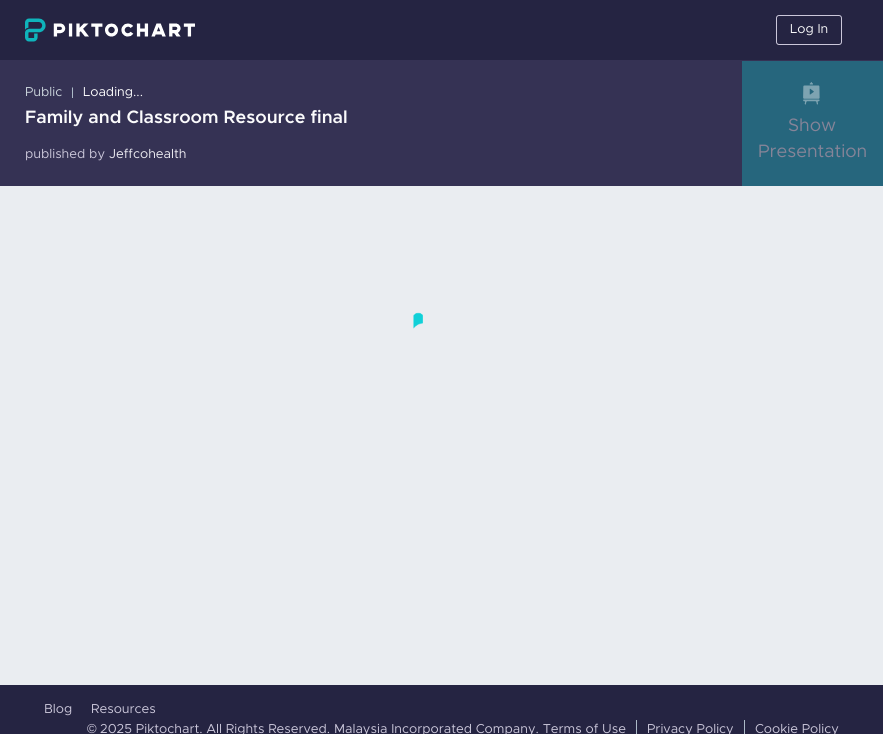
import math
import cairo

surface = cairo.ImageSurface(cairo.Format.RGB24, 883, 734)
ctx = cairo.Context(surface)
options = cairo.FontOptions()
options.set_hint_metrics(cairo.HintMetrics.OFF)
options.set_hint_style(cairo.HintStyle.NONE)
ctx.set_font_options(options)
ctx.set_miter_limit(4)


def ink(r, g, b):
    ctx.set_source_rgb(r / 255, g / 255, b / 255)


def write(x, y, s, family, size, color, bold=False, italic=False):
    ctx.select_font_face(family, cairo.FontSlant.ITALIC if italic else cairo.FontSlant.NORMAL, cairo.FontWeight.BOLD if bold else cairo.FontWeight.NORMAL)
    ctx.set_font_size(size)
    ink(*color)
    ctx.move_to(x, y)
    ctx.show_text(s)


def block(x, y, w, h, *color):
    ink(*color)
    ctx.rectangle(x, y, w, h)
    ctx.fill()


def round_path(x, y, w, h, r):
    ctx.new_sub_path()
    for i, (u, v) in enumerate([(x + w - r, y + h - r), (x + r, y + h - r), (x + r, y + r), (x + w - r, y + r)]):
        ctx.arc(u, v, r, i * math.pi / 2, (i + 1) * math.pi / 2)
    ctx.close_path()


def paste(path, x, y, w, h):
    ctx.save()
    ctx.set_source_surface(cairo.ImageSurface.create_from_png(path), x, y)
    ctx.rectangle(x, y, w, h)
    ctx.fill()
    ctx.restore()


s1 = dict(family="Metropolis", size=13, color=(251, 251, 252))
s2 = dict(family="Metropolis", size=13, color=(203, 212, 220))
s3 = dict(family="Metropolis SemiBold", size=18, color=(251, 251, 252))
s4 = dict(family="Metropolis", size=13, color=(203, 199, 218))
s5 = dict(family="Metropolis", size=13, color=(237, 236, 242))
s6 = dict(family="Metropolis", size=18, color=(134, 132, 152))
s7 = dict(family="Liberation Sans", size=13, color=(203, 199, 218))

ink(53, 50, 84)
ctx.paint()
block(0, 0, 883, 60, 37, 36, 66)
paste("pic1.png", 25, 18, 170, 24)
round_path(776.5, 15.5, 65, 29, 2.5)
ink(203, 199, 218)
ctx.set_line_width(1)
ctx.stroke()
write(790, 33, "Log In", **s1)
write(25, 96, "Public", **s2)
ink(48, 45, 76)
ctx.new_path()
ctx.move_to(72, 87)
ctx.line_to(73, 87)
ctx.line_to(73, 88)
ctx.close_path()
ctx.fill()
ink(172, 186, 200)
ctx.new_path()
ctx.move_to(72, 98)
ctx.line_to(72, 87)
ctx.line_to(73, 88)
ctx.line_to(73, 98)
ctx.close_path()
ctx.fill()
write(83, 96, "Loading...", **s1)
write(25, 123, "Family and Classroom Resource final", **s3)
write(25, 158, "published by", **s4)
write(109, 158, "Jeffcohealth", **s5)
block(742, 61, 141, 125, 38, 102, 125)
paste("pic2.png", 803, 82, 17, 23)
write(788, 131, "Show", **s6)
write(758, 157, "Presentation", **s6)
block(0, 186, 883, 499, 234, 237, 241)
paste("pic3.png", 413, 312, 10, 17)
block(0, 685, 883, 49, 37, 36, 66)
write(44, 713, "Blog", **s4)
write(91, 713, "Resources", **s4)
write(87, 733, "©", **s7)
write(100, 733, "2025 Piktochart. All Rights Reserved. Malaysia Incorporated Company. Terms of Use", **s4)
block(636, 720, 1, 14, 172, 186, 200)
block(744, 720, 1, 14, 172, 186, 200)
write(647, 733, "Privacy Policy", **s4)
write(755, 733, "Cookie Policy", **s4)
surface.write_to_png("screenshot.png")
